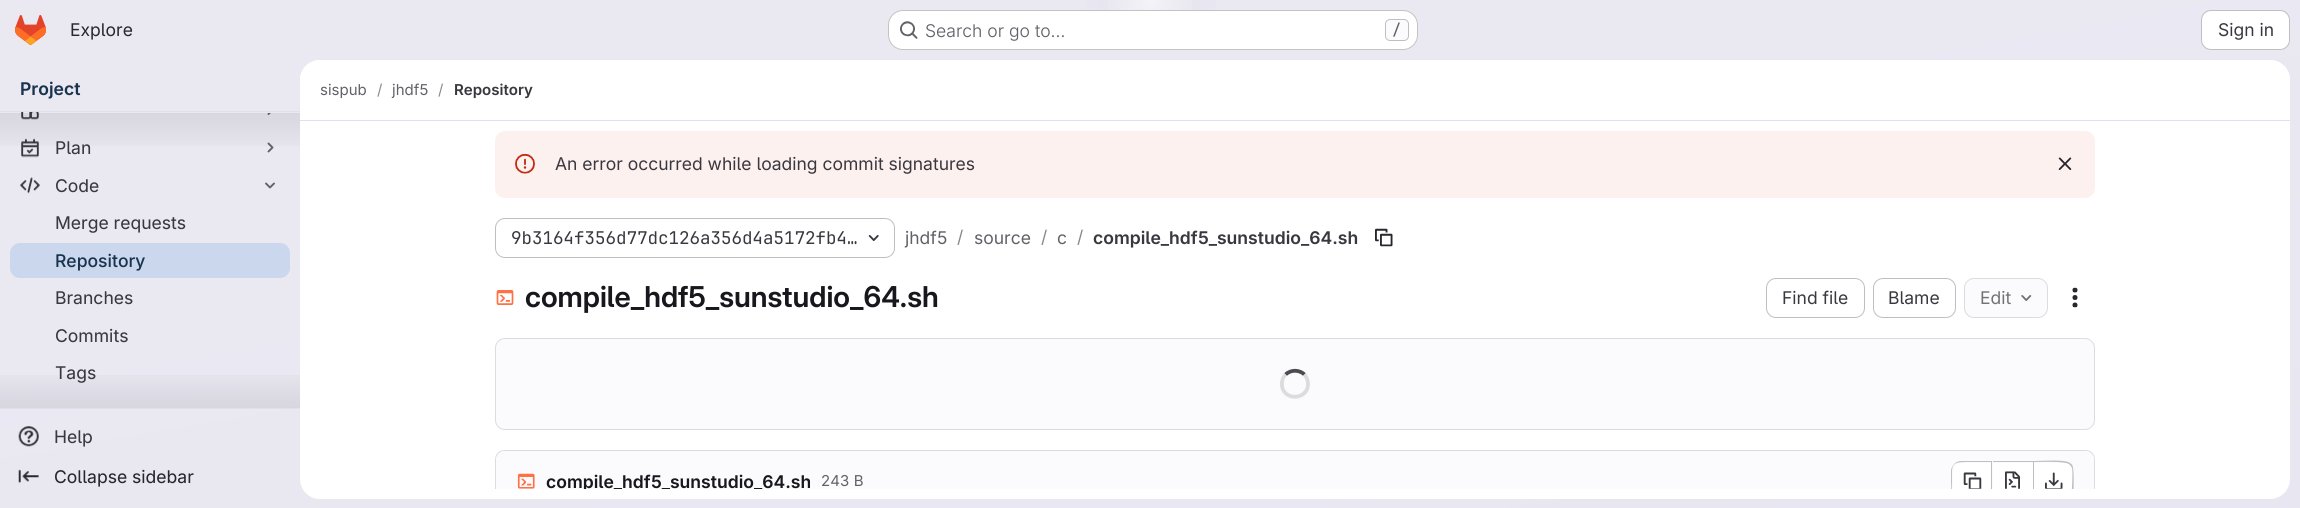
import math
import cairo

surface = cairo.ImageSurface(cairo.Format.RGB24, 2300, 508)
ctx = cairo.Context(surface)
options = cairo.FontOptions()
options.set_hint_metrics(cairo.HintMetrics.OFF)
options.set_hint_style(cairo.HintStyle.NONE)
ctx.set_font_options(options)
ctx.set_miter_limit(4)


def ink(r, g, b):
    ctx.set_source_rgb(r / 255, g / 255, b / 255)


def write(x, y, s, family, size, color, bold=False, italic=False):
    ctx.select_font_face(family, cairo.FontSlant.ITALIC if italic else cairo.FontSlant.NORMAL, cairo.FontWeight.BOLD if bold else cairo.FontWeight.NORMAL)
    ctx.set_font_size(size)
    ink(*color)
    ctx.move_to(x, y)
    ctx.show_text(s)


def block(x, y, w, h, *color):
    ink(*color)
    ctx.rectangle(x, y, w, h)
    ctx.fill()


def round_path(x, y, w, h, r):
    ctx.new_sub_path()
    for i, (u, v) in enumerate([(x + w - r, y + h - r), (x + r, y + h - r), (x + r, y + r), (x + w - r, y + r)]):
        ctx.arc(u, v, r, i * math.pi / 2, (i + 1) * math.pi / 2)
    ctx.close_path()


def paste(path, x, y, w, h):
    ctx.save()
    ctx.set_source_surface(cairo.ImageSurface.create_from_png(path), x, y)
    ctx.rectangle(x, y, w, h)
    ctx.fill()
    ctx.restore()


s1 = dict(family="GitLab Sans", size=17.5, color=(40, 39, 45))
s2 = dict(family="GitLab Sans Light", size=17.5, color=(98, 97, 104))
s3 = dict(family="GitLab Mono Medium", size=15, color=(98, 97, 104))
s4 = dict(family="GitLab Sans", size=17.5, color=(58, 56, 63))
s5 = dict(family="GitLab Sans SemiBold", size=17.5, color=(24, 51, 78))
s6 = dict(family="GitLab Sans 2", size=17.5, color=(58, 56, 63))
s7 = dict(family="GitLab Sans Medium", size=17.5, color=(24, 51, 78))
s8 = dict(family="GitLab Sans 2", size=17.5, color=(40, 39, 45))
s9 = dict(family="GitLab Sans", size=15, color=(98, 97, 104))
s10 = dict(family="GitLab Sans", size=15, color=(137, 136, 141))
s11 = dict(family="GitLab Sans SemiBold", size=15, color=(58, 56, 63))
s12 = dict(family="GitLab Mono", size=17.5, color=(58, 56, 63))
s13 = dict(family="GitLab Sans", size=17.5, color=(98, 97, 104))
s14 = dict(family="GitLab Sans", size=17.5, color=(137, 136, 141))
s15 = dict(family="GitLab Sans SemiBold", size=17.5, color=(58, 56, 63))
s16 = dict(family="GitLab Sans 2 SemiBold", size=28.75, color=(24, 23, 29))
s17 = dict(family="GitLab Sans", size=17.5, color=(115, 114, 120))
s18 = dict(family="GitLab Sans SemiBold", size=17.5, color=(24, 23, 29))

ink(255, 255, 255)
ctx.paint()
gradient = cairo.LinearGradient(1228, 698, 1072, -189)
gradient.add_color_stop_rgba(0, 0.91, 0.902, 0.941, 1)
gradient.add_color_stop_rgba(0.7, 0.918, 0.914, 0.949, 1)
ctx.set_source(gradient)
ctx.rectangle(0, 0, 2300, 508)
ctx.fill()
gradient = cairo.RadialGradient(0, 0, 0, 0, 0, 1)
gradient.set_matrix(cairo.Matrix(1 / 1150, 0, 0, 1 / 509, -1 * 1150 / 1150, -1 * 0 / 509))
gradient.add_color_stop_rgba(0, 0.894, 0.886, 0.929, 1)
gradient.add_color_stop_rgba(0.08, 0.894, 0.886, 0.929, 0)
ctx.set_source(gradient)
ctx.rectangle(1085, 0, 131, 10)
ctx.fill()
gradient = cairo.RadialGradient(1150, 0, 0, 1150, 0, 1258)
gradient.add_color_stop_rgba(0, 1, 1, 1, 0.6)
gradient.add_color_stop_rgba(0.04, 1, 1, 1, 0)
ctx.set_source(gradient)
ctx.rectangle(1108, 0, 84, 10)
ctx.fill()
paste("pic1.png", 15, 15, 31, 30)
write(70, 36, "Explore", **s1)
ink(255, 255, 255)
round_path(888, 10, 530, 40, 15)
ctx.fill()
round_path(888.5, 10.5, 529, 39, 14.5)
ctx.set_source_rgba(0.02, 0.02, 0.024, 0.24)
ctx.set_line_width(1)
ctx.stroke()
paste("pic2.png", 900, 21, 18, 18)
write(925, 37, "Search or go to…", **s2)
ink(251, 250, 253)
round_path(1385.5, 19.5, 23, 21, 4.5)
ctx.fill_preserve()
ink(191, 191, 195)
ctx.stroke()
write(1392, 35, "/", **s3)
ink(255, 255, 255)
round_path(2201.5, 10.5, 88, 39, 9.5)
ctx.fill_preserve()
ink(191, 191, 195)
ctx.stroke()
write(2218, 36, "Sign in", **s4)
write(20, 95, "Project", **s5)
block(0, 111, 300, 1, 225, 223, 236)
block(0, 408, 300, 1, 225, 223, 236)
paste("pic3.png", 21, 112, 18, 8)
ctx.save()
ctx.rectangle(260, 113, 20, 7)
ctx.clip()
ctx.new_path()
ctx.move_to(268.5, 106)
ctx.line_to(272.5, 110)
ctx.line_to(268.5, 114)
ink(98, 97, 104)
ctx.set_line_width(1.9)
ctx.set_line_cap(cairo.LineCap.ROUND)
ctx.set_line_join(cairo.LineJoin.ROUND)
ctx.stroke()
ctx.restore()
paste("pic4.png", 21, 138, 18, 20)
ctx.new_path()
ctx.move_to(268.5, 143.5)
ctx.line_to(272.5, 147.5)
ctx.line_to(268.5, 151.5)
ink(98, 97, 104)
ctx.set_line_width(1.9)
ctx.set_line_cap(cairo.LineCap.ROUND)
ctx.set_line_join(cairo.LineJoin.ROUND)
ctx.stroke()
gradient = cairo.LinearGradient(150, 112, 150, 158)
gradient.add_color_stop_rgba(0, 0.02, 0.02, 0.024, 0.08)
gradient.add_color_stop_rgba(1, 0.02, 0.02, 0.024, 0)
ctx.set_source(gradient)
ctx.rectangle(0, 113, 300, 33)
ctx.fill()
write(55, 154, "Plan", **s6)
paste("pic5.png", 20, 177, 20, 17)
write(55, 192, "Code", **s6)
ctx.new_path()
ctx.move_to(274, 183.5)
ctx.line_to(270, 187.5)
ctx.line_to(266, 183.5)
ink(98, 97, 104)
ctx.stroke()
write(55, 229, "Merge requests", **s6)
ink(202, 215, 236)
round_path(10, 243, 280, 35, 10)
ctx.fill()
write(55, 267, "Repository", **s7)
write(55, 304, "Branches", **s6)
write(55, 342, "Commits", **s6)
write(55, 379, "Tags", **s6)
gradient = cairo.LinearGradient(150, 363, 150, 408)
gradient.add_color_stop_rgba(0, 0.02, 0.02, 0.024, 0)
gradient.add_color_stop_rgba(1, 0.02, 0.02, 0.024, 0.08)
ctx.set_source(gradient)
ctx.rectangle(0, 375, 300, 33)
ctx.fill()
paste("pic6.png", 18, 426, 21, 21)
write(54, 443, "Help", **s6)
paste("pic7.png", 18, 469, 21, 15)
write(54, 483, "Collapse sidebar", **s8)
ink(255, 255, 255)
round_path(300, 60, 1990, 439, 20)
ctx.fill()
ctx.new_path()
ctx.move_to(320, 60)
ctx.line_to(2270, 60)
ctx.curve_to(2281, 60, 2290, 69, 2290, 80)
ctx.line_to(2290, 121)
ctx.line_to(300, 121)
ctx.line_to(300, 80)
ctx.curve_to(300, 69, 309, 60, 320, 60)
ctx.close_path()
ctx.fill()
block(300, 120, 1990, 1, 225, 223, 236)
write(320, 95, "sispub", **s9)
write(377, 95, "/", **s10)
write(392, 95, "jhdf5", **s9)
write(438, 95, "/", **s10)
write(454, 95, "Repository", **s11)
ink(252, 241, 239)
round_path(495, 131, 1600, 67, 10)
ctx.fill()
paste("pic8.png", 515, 153, 20, 21)
write(555, 170, "An error occurred while loading commit signatures", **s4)
paste("pic9.png", 2058, 157, 14, 13)
round_path(495.5, 218.5, 399, 39, 9.5)
ink(191, 191, 195)
ctx.set_line_width(1)
ctx.set_line_cap(cairo.LineCap.BUTT)
ctx.set_line_join(cairo.LineJoin.MITER)
ctx.stroke()
write(511, 244, "9b3164f356d77dc126a356d4a5172fb4…", **s12)
paste("pic10.png", 868, 235, 11, 6)
write(905, 244, "jhdf5", **s13)
write(957, 243, "/", **s14)
write(974, 244, "source", **s13)
write(1041, 243, "/", **s14)
write(1057, 244, "c", **s13)
write(1077, 243, "/", **s14)
write(1093, 244, "compile_hdf5_sunstudio_64.sh", **s15)
paste("pic11.png", 1375, 228, 18, 19)
paste("pic12.png", 496, 290, 18, 15)
write(525, 307, "compile_hdf5_sunstudio_64.sh", **s16)
round_path(1766.5, 278.5, 98, 39, 9.5)
ink(191, 191, 195)
ctx.stroke()
write(1782, 304, "Find file", **s4)
round_path(1873.5, 278.5, 82, 39, 9.5)
ink(191, 191, 195)
ctx.stroke()
write(1888, 304, "Blame", **s4)
ink(251, 250, 253)
round_path(1964.5, 278.5, 83, 39, 9.5)
ctx.fill_preserve()
ink(220, 220, 222)
ctx.stroke()
write(1980, 304, "Edit", **s17)
paste("pic13.png", 2021, 295, 11, 6)
paste("pic14.png", 2072, 287, 6, 21)
ink(251, 250, 253)
round_path(495.5, 338.5, 1599, 91, 9.5)
ctx.fill_preserve()
ink(220, 220, 222)
ctx.stroke()
ctx.new_path()
ctx.move_to(1285.5, 374.5)
ctx.curve_to(1291, 369.5, 1299, 369.5, 1304.5, 374.5)
ink(76, 75, 81)
ctx.set_line_width(3.8)
ctx.stroke()
ctx.new_path()
ctx.move_to(1304.5, 374.5)
ctx.curve_to(1306.5, 377, 1308, 380.5, 1308, 384)
ctx.curve_to(1308, 399.5, 1285, 401.5, 1282, 386.5)
ctx.curve_to(1281.5, 382, 1282.5, 377.5, 1285.5, 374.5)
ink(220, 220, 222)
ctx.stroke()
ctx.save()
ctx.rectangle(300, 121, 1990, 368)
ctx.clip()
ctx.new_path()
ctx.move_to(505, 450)
ctx.curve_to(499, 450, 495, 454, 495, 460)
ctx.line_to(495, 499)
ctx.line_to(496, 499)
ctx.line_to(496, 460)
ctx.curve_to(496, 455, 500, 451, 505, 451)
ctx.line_to(2085, 451)
ctx.curve_to(2090, 451, 2094, 455, 2094, 460)
ctx.line_to(2094, 499)
ctx.line_to(2095, 499)
ctx.line_to(2095, 460)
ctx.curve_to(2095, 454, 2091, 450, 2085, 450)
ctx.close_path()
ctx.fill()
ctx.restore()
ink(251, 250, 253)
ctx.new_path()
ctx.move_to(505, 451)
ctx.line_to(2085, 451)
ctx.curve_to(2090, 451, 2094, 455, 2094, 460)
ctx.line_to(2094, 489)
ctx.line_to(496, 489)
ctx.line_to(496, 460)
ctx.curve_to(496, 455, 500, 451, 505, 451)
ctx.close_path()
ctx.fill()
paste("pic15.png", 517, 473, 18, 16)
ctx.save()
ctx.rectangle(300, 121, 1990, 368)
ctx.clip()
write(546, 488, "compile_hdf5_sunstudio_64.sh", **s18)
ctx.restore()
write(821, 486, "243 B", **s9)
ink(255, 255, 255)
ctx.new_path()
ctx.move_to(1962, 463)
ctx.line_to(1991, 463)
ctx.line_to(1991, 489)
ctx.line_to(1953, 489)
ctx.line_to(1953, 472)
ctx.curve_to(1953, 467, 1957, 463, 1962, 463)
ctx.close_path()
ctx.fill()
ctx.save()
ctx.rectangle(300, 121, 1990, 368)
ctx.clip()
ink(191, 191, 195)
ctx.new_path()
ctx.move_to(1961, 461)
ctx.line_to(1991, 461)
ctx.line_to(1991, 462)
ctx.line_to(1966, 462)
ctx.curve_to(1950, 462, 1952, 467, 1952, 481)
ctx.curve_to(1952, 487, 1950, 496, 1957, 499)
ctx.line_to(1955, 499)
ctx.curve_to(1953, 497, 1951, 494, 1951, 491)
ctx.line_to(1951, 471)
ctx.curve_to(1951, 466, 1956, 461, 1961, 461)
ctx.close_path()
ctx.fill()
ctx.restore()
paste("pic16.png", 1963, 472, 19, 17)
block(1993, 463, 40, 26, 255, 255, 255)
block(1993, 461, 40, 1, 191, 191, 195)
block(1991, 461, 1, 28, 191, 191, 195)
paste("pic17.png", 2005, 471, 15, 18)
ink(255, 255, 255)
ctx.new_path()
ctx.move_to(2034, 463)
ctx.line_to(2064, 463)
ctx.curve_to(2069, 463, 2073, 467, 2073, 472)
ctx.line_to(2073, 489)
ctx.line_to(2034, 489)
ctx.close_path()
ctx.fill()
ctx.save()
ctx.rectangle(300, 121, 1990, 368)
ctx.clip()
ink(191, 191, 195)
ctx.new_path()
ctx.move_to(2034, 461)
ctx.curve_to(2042, 461, 2065, 459, 2070, 463)
ctx.curve_to(2072, 464, 2073, 466, 2073, 468)
ctx.curve_to(2074, 472, 2074, 491, 2073, 495)
ctx.curve_to(2072, 497, 2071, 498, 2070, 499)
ctx.line_to(2067, 499)
ctx.curve_to(2069, 498, 2070, 497, 2071, 496)
ctx.curve_to(2072, 493, 2073, 471, 2072, 468)
ctx.curve_to(2071, 466, 2070, 465, 2069, 464)
ctx.curve_to(2064, 461, 2041, 462, 2034, 462)
ctx.close_path()
ctx.fill()
ctx.restore()
block(2033, 461, 1, 28, 191, 191, 195)
paste("pic18.png", 2045, 472, 18, 17)
surface.write_to_png("screenshot.png")
